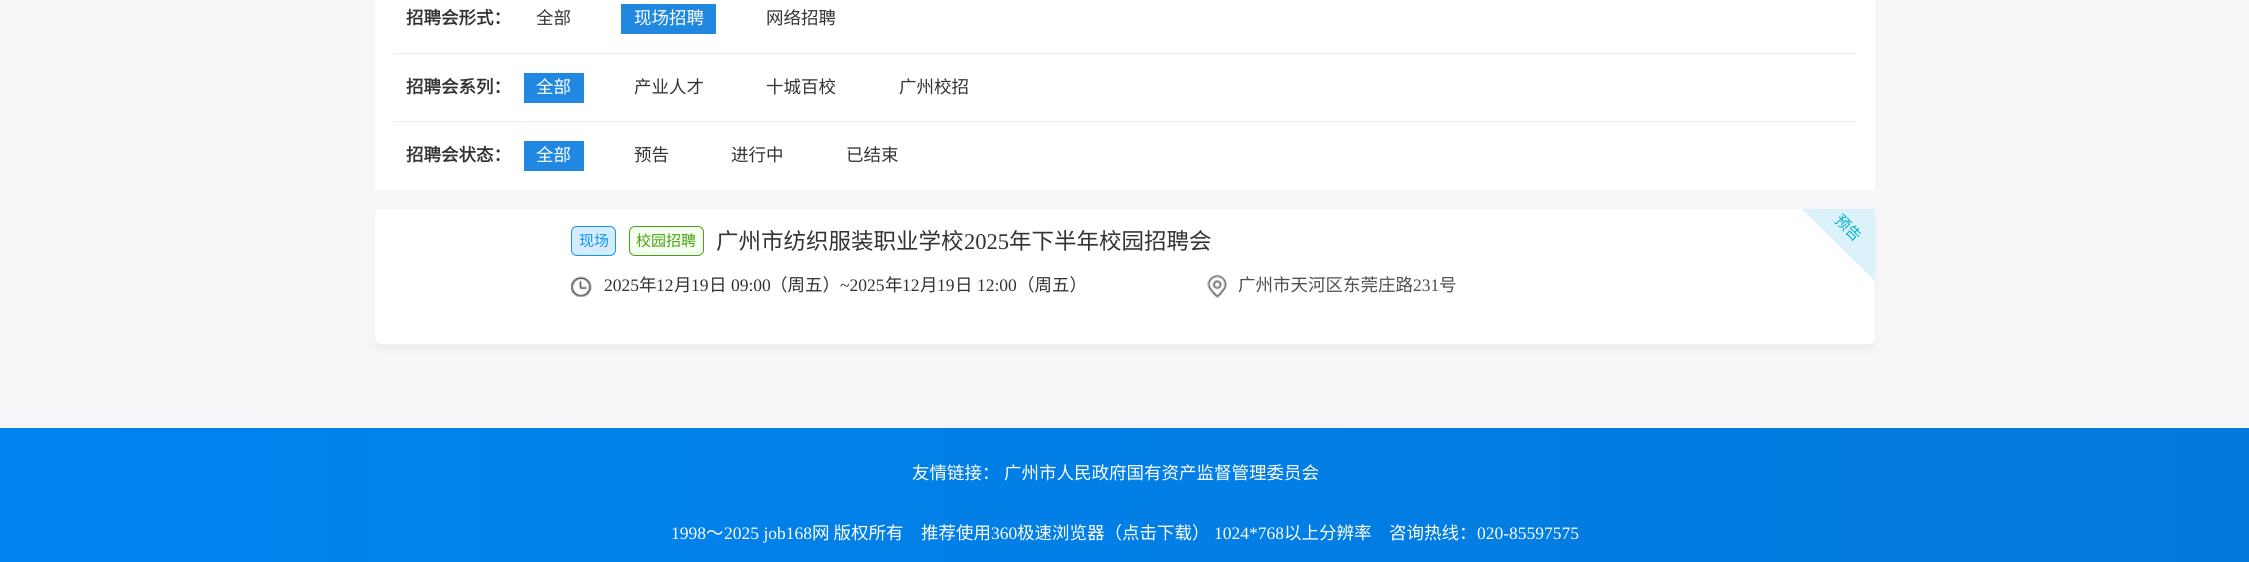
import math
import cairo

surface = cairo.ImageSurface(cairo.Format.RGB24, 2249, 562)
ctx = cairo.Context(surface)
options = cairo.FontOptions()
options.set_hint_metrics(cairo.HintMetrics.OFF)
options.set_hint_style(cairo.HintStyle.NONE)
ctx.set_font_options(options)
ctx.set_miter_limit(4)


def ink(r, g, b):
    ctx.set_source_rgb(r / 255, g / 255, b / 255)


def write(x, y, s, family, size, color, bold=False, italic=False):
    ctx.select_font_face(family, cairo.FontSlant.ITALIC if italic else cairo.FontSlant.NORMAL, cairo.FontWeight.BOLD if bold else cairo.FontWeight.NORMAL)
    ctx.set_font_size(size)
    ink(*color)
    ctx.move_to(x, y)
    ctx.show_text(s)


def block(x, y, w, h, *color):
    ink(*color)
    ctx.rectangle(x, y, w, h)
    ctx.fill()


def round_path(x, y, w, h, r):
    ctx.new_sub_path()
    for i, (u, v) in enumerate([(x + w - r, y + h - r), (x + r, y + h - r), (x + r, y + r), (x + w - r, y + r)]):
        ctx.arc(u, v, r, i * math.pi / 2, (i + 1) * math.pi / 2)
    ctx.close_path()


def blur_box(x, y, w, h, r, blur, alpha):
    ctx.push_group_with_content(cairo.Content.ALPHA)
    ctx.set_operator(cairo.Operator.SOURCE)
    for i in range(15, -16, -2):
        e = blur * i / 6
        if min(w, h) + 2 * e > 0:
            ctx.set_source_rgba(0, 0, 0, alpha * math.erfc((i - 1) / 8.5) / 2)
            round_path(x - e, y - e, w + 2 * e, h + 2 * e, max(0, min(r + e + blur * .6, min(w, h) / 2 + e)))
            ctx.fill()
    ctx.mask(ctx.pop_group())


def paste(path, x, y, w, h):
    ctx.save()
    ctx.set_source_surface(cairo.ImageSurface.create_from_png(path), x, y)
    ctx.rectangle(x, y, w, h)
    ctx.fill()
    ctx.restore()


s1 = dict(family="Noto Sans CJK SC", size=17.5, color=(51, 51, 51), bold=True)
s2 = dict(family="Noto Sans CJK SC", size=17.5, color=(51, 51, 51))
s3 = dict(family="Noto Sans CJK SC", size=17.5, color=(255, 255, 255))
s4 = dict(family="Noto Sans CJK SC", size=15, color=(15, 148, 250))
s5 = dict(family="Noto Sans CJK SC", size=15, color=(70, 162, 20))
s6 = dict(family="Noto Sans CJK SC", size=22.5, color=(51, 51, 51))
s7 = dict(family="Liberation Serif", size=22.5, color=(51, 51, 51))
s8 = dict(family="Liberation Serif", size=17.5, color=(51, 51, 51))
s9 = dict(family="Noto Sans CJK SC", size=17.5, color=(78, 78, 78))
s10 = dict(family="Liberation Serif", size=17.5, color=(78, 78, 78))
s11 = dict(family="Noto Sans CJK SC", size=15, color=(3, 176, 196))
s12 = dict(family="Liberation Serif", size=17.5, color=(255, 255, 255))

ink(246, 246, 248)
ctx.paint()
block(375, 0, 1500, 190, 255, 255, 255)
write(406, 24, "招聘会形式：", **s1)
write(536, 24, "全部", **s2)
block(621, 4, 95, 30, 32, 136, 224)
write(634, 24, "现场招聘", **s3)
write(766, 24, "网络招聘", **s2)
block(394, 53, 1462, 1, 238, 237, 237)
write(406, 93, "招聘会系列：", **s1)
block(524, 73, 60, 30, 32, 136, 224)
write(536, 93, "全部", **s3)
write(634, 93, "产业人才", **s2)
write(766, 93, "十城百校", **s2)
write(899, 93, "广州校招", **s2)
block(394, 121, 1462, 1, 238, 237, 237)
write(406, 161, "招聘会状态：", **s1)
block(524, 141, 60, 30, 32, 136, 224)
write(536, 161, "全部", **s3)
write(634, 161, "预告", **s2)
write(731, 161, "进行中", **s2)
write(846, 161, "已结束", **s2)
ink(238, 238, 238)
blur_box(375, 215, 1500, 135, 6, 3, 1)
ink(255, 255, 255)
round_path(375, 209, 1500, 135, 6)
ctx.fill()
ink(213, 236, 254)
round_path(571.5, 226.5, 44, 29, 5.5)
ctx.fill_preserve()
ink(15, 148, 250)
ctx.set_line_width(1)
ctx.stroke()
write(579, 246, "现场", **s4)
ink(245, 255, 239)
round_path(629.5, 226.5, 74, 29, 5.5)
ctx.fill_preserve()
ink(70, 162, 20)
ctx.stroke()
write(636, 246, "校园招聘", **s5)
write(716, 249, "广州市纺织服装职业学校", **s6)
write(964, 249, "2025", **s7)
write(1009, 249, "年下半年校园招聘会", **s6)
paste("pic1.png", 571, 276, 21, 21)
write(604, 291, "2025", **s8)
write(639, 291, "年", **s2)
write(656, 291, "12", **s8)
write(674, 291, "月", **s2)
write(691, 291, "19", **s8)
write(709, 291, "日", **s2)
write(731, 291, "09:00", **s8)
write(770, 291, "（周五）", **s2)
write(840, 291, "~2025", **s8)
write(885, 291, "年", **s2)
write(902, 291, "12", **s8)
write(920, 291, "月", **s2)
write(937, 291, "19", **s8)
write(955, 291, "日", **s2)
write(977, 291, "12:00", **s8)
write(1017, 291, "（周五）", **s2)
paste("pic2.png", 1207, 275, 20, 23)
write(1238, 291, "广州市天河区东莞庄路", **s9)
write(1413, 291, "231", **s10)
write(1439, 291, "号", **s9)
ink(219, 242, 251)
ctx.new_path()
ctx.move_to(1802, 209)
ctx.line_to(1875, 209)
ctx.line_to(1875, 281)
ctx.close_path()
ctx.fill()
ctx.save()
ctx.translate(1834, 221)
ctx.rotate(45 * math.pi / 180)
write(0, 0, "预告", **s11)
ctx.restore()
gradient = cairo.LinearGradient(0, 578, 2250, 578)
gradient.add_color_stop_rgba(0, 0, 0.518, 0.941, 1)
gradient.add_color_stop_rgba(1, 0.012, 0.475, 0.859, 1)
ctx.set_source(gradient)
ctx.rectangle(0, 428, 2249, 134)
ctx.fill()
write(912, 479, "友情链接：", **s3)
write(1004, 479, "广州市人民政府国有资产监督管理委员会", **s3)
write(671, 539, "1998", **s12)
write(706, 539, "～", **s3)
write(724, 539, "2025 job168", **s12)
write(812, 539, "网 版权所有　推荐使用", **s3)
write(991, 539, "360", **s12)
write(1017, 539, "极速浏览器（点击下载）", **s3)
write(1214, 539, "1024*768", **s12)
write(1284, 539, "以上分辨率　咨询热线：", **s3)
write(1477, 539, "020-85597575", **s12)
surface.write_to_png("screenshot.png")
